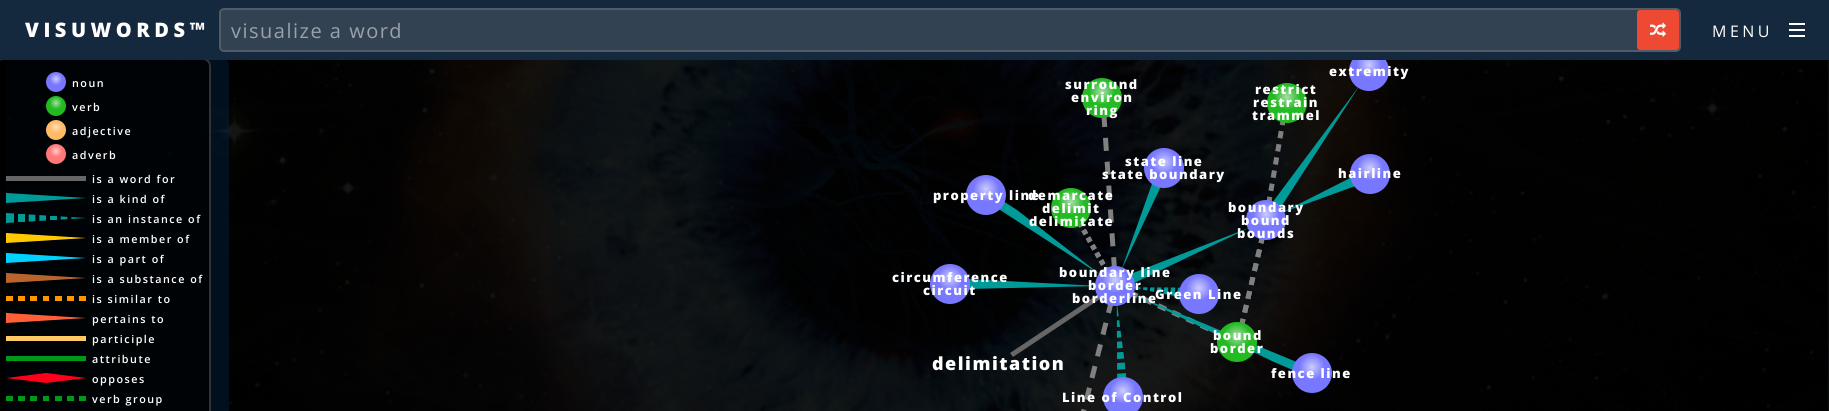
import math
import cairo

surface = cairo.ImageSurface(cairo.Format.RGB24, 1829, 411)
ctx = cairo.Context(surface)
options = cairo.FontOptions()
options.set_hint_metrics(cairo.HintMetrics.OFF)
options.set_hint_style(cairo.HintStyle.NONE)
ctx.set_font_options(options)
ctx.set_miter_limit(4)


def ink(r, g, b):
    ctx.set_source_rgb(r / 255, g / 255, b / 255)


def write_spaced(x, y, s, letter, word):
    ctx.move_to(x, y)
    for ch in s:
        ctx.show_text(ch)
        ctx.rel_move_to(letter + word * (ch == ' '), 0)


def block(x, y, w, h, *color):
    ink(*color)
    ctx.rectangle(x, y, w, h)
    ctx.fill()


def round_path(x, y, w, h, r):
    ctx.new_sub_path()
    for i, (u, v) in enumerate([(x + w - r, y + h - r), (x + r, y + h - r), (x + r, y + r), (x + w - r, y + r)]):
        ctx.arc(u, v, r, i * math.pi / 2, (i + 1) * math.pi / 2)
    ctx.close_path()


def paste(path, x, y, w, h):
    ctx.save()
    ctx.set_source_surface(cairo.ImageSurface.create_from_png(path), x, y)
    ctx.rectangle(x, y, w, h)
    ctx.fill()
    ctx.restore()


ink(255, 255, 255)
ctx.paint()
paste("pic1.png", 0, 60, 1829, 351)
ctx.set_source_rgba(0, 0.196, 0.392, 0.3)
round_path(5, 58, 224, 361, 8)
ctx.fill()
ctx.set_source_rgba(0, 0, 0, 0.8)
round_path(-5, 58, 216, 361, 8)
ctx.fill()
round_path(-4, 59, 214, 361, 7)
ctx.set_source_rgba(0.392, 0.392, 0.392, 0.5)
ctx.stroke()
ink(0, 155, 153)
ctx.new_path()
ctx.move_to(1271, 204)
ctx.line_to(1279, 210)
ctx.line_to(1360, 85)
ctx.line_to(1275, 199)
ctx.close_path()
ctx.fill()
gradient = cairo.RadialGradient(1369, 65, 0, 1369, 65, 13)
gradient.add_color_stop_rgba(0, 0.8, 0.8, 1, 1)
gradient.add_color_stop_rgba(1, 0.467, 0.467, 1, 1)
ctx.set_source(gradient)
ctx.arc(1369, 71, 20, 0, 2 * math.pi)
ctx.fill()
block(0, 0, 1829, 60, 20, 40, 62)
ctx.select_font_face("Open Sans ExtraBold")
ctx.set_font_size(20)
ink(255, 255, 255)
write_spaced(25, 37, "VISUWORDS™", 4.5, 0)
round_path(220, 9, 1460, 42, 4)
ink(82, 92, 103)
ctx.stroke()
ctx.set_source_rgba(0.565, 0.565, 0.565, 0.25)
round_path(221, 10, 1458, 40, 3)
ctx.fill()
ctx.select_font_face("Open Sans")
ink(153, 161, 169)
write_spaced(231, 38, "visualize a word", 1.5, 0)
ink(237, 73, 51)
round_path(1637, 10, 42, 40, 3)
ctx.fill()
paste("pic2.png", 1650, 22, 16, 15)
ctx.set_font_size(16)
ink(255, 255, 255)
write_spaced(1712, 37, "MENU", 3.5, 0)
block(1789, 23, 16, 2, 255, 255, 255)
block(1789, 29, 16, 2, 255, 255, 255)
block(1789, 35, 16, 2, 255, 255, 255)
gradient = cairo.RadialGradient(56, 79, 0, 56, 79, 6.2)
gradient.add_color_stop_rgba(0, 0.8, 0.8, 1, 1)
gradient.add_color_stop_rgba(1, 0.467, 0.467, 1, 1)
ctx.set_source(gradient)
ctx.new_path()
ctx.arc(56, 82, 10, 0, 2 * math.pi)
ctx.fill()
ctx.select_font_face("Open Sans SemiBold")
ctx.set_font_size(10.75)
ink(255, 255, 255)
write_spaced(72, 87, "noun", 1.5, 0)
gradient = cairo.RadialGradient(56, 103, 0, 56, 103, 6.2)
gradient.add_color_stop_rgba(0, 0.667, 0.867, 0.667, 1)
gradient.add_color_stop_rgba(1, 0.133, 0.733, 0.133, 1)
ctx.set_source(gradient)
ctx.new_path()
ctx.arc(56, 106, 10, 0, 2 * math.pi)
ctx.fill()
ink(255, 255, 255)
write_spaced(72, 111, "verb", 1.5, 0)
gradient = cairo.RadialGradient(56, 127, 0, 56, 127, 6.2)
gradient.add_color_stop_rgba(0, 1, 0.867, 0.733, 1)
gradient.add_color_stop_rgba(1, 1, 0.733, 0.4, 1)
ctx.set_source(gradient)
ctx.new_path()
ctx.arc(56, 130, 10, 0, 2 * math.pi)
ctx.fill()
ink(255, 255, 255)
write_spaced(72, 135, "adjective", 1.5, 0)
gradient = cairo.RadialGradient(56, 151, 0, 56, 151, 6.2)
gradient.add_color_stop_rgba(0, 1, 0.8, 0.8, 1)
gradient.add_color_stop_rgba(1, 1, 0.467, 0.467, 1)
ctx.set_source(gradient)
ctx.new_path()
ctx.arc(56, 154, 10, 0, 2 * math.pi)
ctx.fill()
ink(255, 255, 255)
write_spaced(72, 159, "adverb", 1.5, 0)
block(6, 176, 80, 5, 102, 102, 102)
ink(255, 255, 255)
write_spaced(92, 183, "is a word for", 1.5, 0)
ink(0, 155, 153)
ctx.new_path()
ctx.move_to(6, 193)
ctx.line_to(6, 203)
ctx.line_to(86, 198)
ctx.close_path()
ctx.fill()
ink(255, 255, 255)
write_spaced(92, 203, "is a kind of", 1.5, 0)
paste("pic3.png", 6, 213, 80, 10)
write_spaced(92, 223, "is an instance of", 1.5, 0)
ink(255, 201, 0)
ctx.new_path()
ctx.move_to(6, 233)
ctx.line_to(6, 243)
ctx.line_to(86, 238)
ctx.close_path()
ctx.fill()
ink(255, 255, 255)
write_spaced(92, 243, "is a member of", 1.5, 0)
ink(0, 209, 255)
ctx.new_path()
ctx.move_to(6, 253)
ctx.line_to(6, 263)
ctx.line_to(86, 258)
ctx.close_path()
ctx.fill()
ink(255, 255, 255)
write_spaced(92, 263, "is a part of", 1.5, 0)
ink(185, 100, 44)
ctx.new_path()
ctx.move_to(6, 273)
ctx.line_to(6, 283)
ctx.line_to(86, 278)
ctx.close_path()
ctx.fill()
ink(255, 255, 255)
write_spaced(92, 283, "is a substance of", 1.5, 0)
block(6, 296, 7, 5, 255, 150, 0)
block(18, 296, 7, 5, 255, 150, 0)
block(30, 296, 7, 5, 255, 150, 0)
block(43, 296, 6, 5, 255, 150, 0)
block(55, 296, 7, 5, 255, 150, 0)
block(67, 296, 7, 5, 255, 150, 0)
block(79, 296, 7, 5, 255, 150, 0)
ink(255, 255, 255)
write_spaced(92, 303, "is similar to", 1.5, 0)
ink(255, 96, 56)
ctx.new_path()
ctx.move_to(6, 313)
ctx.line_to(6, 323)
ctx.line_to(86, 318)
ctx.close_path()
ctx.fill()
ink(255, 255, 255)
write_spaced(92, 323, "pertains to", 1.5, 0)
block(6, 336, 80, 5, 255, 201, 102)
ink(255, 255, 255)
write_spaced(92, 343, "participle", 1.5, 0)
block(6, 356, 80, 5, 0, 153, 26)
ink(255, 255, 255)
write_spaced(92, 363, "attribute", 1.5, 0)
ink(255, 0, 28)
ctx.new_path()
ctx.move_to(46, 373)
ctx.line_to(6, 378)
ctx.line_to(46, 383)
ctx.line_to(86, 378)
ctx.close_path()
ctx.fill()
ink(255, 255, 255)
write_spaced(92, 383, "opposes", 1.5, 0)
block(6, 396, 7, 5, 0, 153, 26)
block(18, 396, 7, 5, 0, 153, 26)
block(30, 396, 7, 5, 0, 153, 26)
block(43, 396, 6, 5, 0, 153, 26)
block(55, 396, 7, 5, 0, 153, 26)
block(67, 396, 7, 5, 0, 153, 26)
block(79, 396, 7, 5, 0, 153, 26)
ink(255, 255, 255)
write_spaced(92, 403, "verb group", 1.5, 0)
ctx.select_font_face("Open Sans ExtraBold")
ctx.set_font_size(13)
write_spaced(1329, 76, "extremity", 1.5, 0)
paste("pic6.png", 1078, 224, 30, 46)
paste("pic7.png", 1078, 224, 30, 46)
paste("pic4.png", 1101, 117, 16, 150)
gradient = cairo.RadialGradient(1102, 92, 0, 1102, 92, 13)
gradient.add_color_stop_rgba(0, 0.667, 0.867, 0.667, 1)
gradient.add_color_stop_rgba(1, 0.133, 0.733, 0.133, 1)
ctx.set_source(gradient)
ctx.arc(1102, 98, 20, 0, 2 * math.pi)
ctx.fill()
ink(255, 255, 255)
write_spaced(1065, 89, "surround", 1.5, 0)
write_spaced(1071, 102, "environ", 1.5, 0)
write_spaced(1086, 115, "ring", 1.5, 0)
paste("pic5.png", 1266, 121, 20, 80)
gradient = cairo.RadialGradient(1287, 97, 0, 1287, 97, 13)
gradient.add_color_stop_rgba(0, 0.667, 0.867, 0.667, 1)
gradient.add_color_stop_rgba(1, 0.133, 0.733, 0.133, 1)
ctx.set_source(gradient)
ctx.arc(1287, 103, 20, 0, 2 * math.pi)
ctx.fill()
ink(255, 255, 255)
write_spaced(1255, 94, "restrict", 1.5, 0)
write_spaced(1253, 107, "restrain", 1.5, 0)
write_spaced(1252, 120, "trammel", 1.5, 0)
ink(0, 155, 153)
ctx.new_path()
ctx.move_to(1128, 275)
ctx.line_to(1132, 284)
ctx.line_to(1251, 227)
ctx.close_path()
ctx.fill()
ctx.new_path()
ctx.move_to(1162, 184)
ctx.line_to(1153, 181)
ctx.line_to(1121, 271)
ctx.close_path()
ctx.fill()
gradient = cairo.RadialGradient(1164, 162, 0, 1164, 162, 13)
gradient.add_color_stop_rgba(0, 0.8, 0.8, 1, 1)
gradient.add_color_stop_rgba(1, 0.467, 0.467, 1, 1)
ctx.set_source(gradient)
ctx.arc(1164, 168, 20, 0, 2 * math.pi)
ctx.fill()
ink(255, 255, 255)
write_spaced(1125, 166, "state line", 1.5, 0)
write_spaced(1102, 179, "state boundary", 1.5, 0)
ink(0, 155, 153)
ctx.new_path()
ctx.move_to(1358, 185)
ctx.line_to(1281, 213)
ctx.line_to(1354, 176)
ctx.close_path()
ctx.fill()
gradient = cairo.RadialGradient(1370, 168, 0, 1370, 168, 13)
gradient.add_color_stop_rgba(0, 0.8, 0.8, 1, 1)
gradient.add_color_stop_rgba(1, 0.467, 0.467, 1, 1)
ctx.set_source(gradient)
ctx.arc(1370, 174, 20, 0, 2 * math.pi)
ctx.fill()
ink(255, 255, 255)
write_spaced(1338, 178, "hairline", 1.5, 0)
ink(0, 155, 153)
ctx.new_path()
ctx.move_to(1017, 210)
ctx.line_to(1003, 201)
ctx.line_to(997, 208)
ctx.line_to(1102, 276)
ctx.close_path()
ctx.fill()
gradient = cairo.RadialGradient(986, 189, 0, 986, 189, 13)
gradient.add_color_stop_rgba(0, 0.8, 0.8, 1, 1)
gradient.add_color_stop_rgba(1, 0.467, 0.467, 1, 1)
ctx.set_source(gradient)
ctx.arc(986, 195, 20, 0, 2 * math.pi)
ctx.fill()
gradient = cairo.RadialGradient(1071, 202, 0, 1071, 202, 13)
gradient.add_color_stop_rgba(0, 0.667, 0.867, 0.667, 1)
gradient.add_color_stop_rgba(1, 0.133, 0.733, 0.133, 1)
ctx.set_source(gradient)
ctx.arc(1071, 208, 20, 0, 2 * math.pi)
ctx.fill()
ink(255, 255, 255)
write_spaced(1028, 200, "demarcate", 1.5, 0)
write_spaced(933, 200, "property line", 1.5, 0)
write_spaced(1042, 213, "delimit", 1.5, 0)
write_spaced(1029, 226, "delimitate", 1.5, 0)
paste("pic11.png", 1131, 291, 88, 45)
ink(0, 155, 153)
ctx.new_path()
ctx.move_to(1295, 371)
ctx.line_to(1274, 362)
ctx.line_to(1130, 293)
ctx.line_to(1299, 363)
ctx.close_path()
ctx.fill()
paste("pic8.png", 1239, 238, 26, 86)
paste("pic9.png", 1239, 238, 26, 86)
gradient = cairo.RadialGradient(1266, 214, 0, 1266, 214, 13)
gradient.add_color_stop_rgba(0, 0.8, 0.8, 1, 1)
gradient.add_color_stop_rgba(1, 0.467, 0.467, 1, 1)
ctx.set_source(gradient)
ctx.arc(1266, 220, 20, 0, 2 * math.pi)
ctx.fill()
ink(255, 255, 255)
write_spaced(1228, 212, "boundary", 1.5, 0)
write_spaced(1241, 225, "bound", 1.5, 0)
write_spaced(1237, 238, "bounds", 1.5, 0)
ink(0, 155, 153)
ctx.new_path()
ctx.move_to(966, 279)
ctx.line_to(966, 289)
ctx.line_to(1099, 286)
ctx.line_to(967, 279)
ctx.close_path()
ctx.fill()
gradient = cairo.RadialGradient(950, 278, 0, 950, 278, 13)
gradient.add_color_stop_rgba(0, 0.8, 0.8, 1, 1)
gradient.add_color_stop_rgba(1, 0.467, 0.467, 1, 1)
ctx.set_source(gradient)
ctx.arc(950, 284, 20, 0, 2 * math.pi)
ctx.fill()
ink(255, 255, 255)
write_spaced(892, 282, "circumference", 1.5, 0)
write_spaced(923, 295, "circuit", 1.5, 0)
paste("pic10.png", 1134, 287, 47, 10)
ink(102, 102, 102)
ctx.new_path()
ctx.move_to(1013, 357)
ctx.line_to(1103, 297)
ctx.line_to(1100, 293)
ctx.line_to(1010, 353)
ctx.close_path()
ctx.fill()
paste("pic12.png", 1081, 304, 32, 107)
paste("pic13.png", 1116, 305, 11, 73)
gradient = cairo.RadialGradient(1115, 280, 0, 1115, 280, 13)
gradient.add_color_stop_rgba(0, 0.8, 0.8, 1, 1)
gradient.add_color_stop_rgba(1, 0.467, 0.467, 1, 1)
ctx.set_source(gradient)
ctx.arc(1115, 286, 20, 0, 2 * math.pi)
ctx.fill()
ink(255, 255, 255)
write_spaced(1059, 277, "boundary line", 1.5, 0)
write_spaced(1088, 290, "border", 1.5, 0)
write_spaced(1072, 303, "borderline", 1.5, 0)
gradient = cairo.RadialGradient(1199, 288, 0, 1199, 288, 13)
gradient.add_color_stop_rgba(0, 0.8, 0.8, 1, 1)
gradient.add_color_stop_rgba(1, 0.467, 0.467, 1, 1)
ctx.set_source(gradient)
ctx.new_path()
ctx.arc(1199, 294, 20, 0, 2 * math.pi)
ctx.fill()
ink(255, 255, 255)
write_spaced(1155, 299, "Green Line", 1.5, 0)
gradient = cairo.RadialGradient(1237, 336, 0, 1237, 336, 13)
gradient.add_color_stop_rgba(0, 0.667, 0.867, 0.667, 1)
gradient.add_color_stop_rgba(1, 0.133, 0.733, 0.133, 1)
ctx.set_source(gradient)
ctx.new_path()
ctx.arc(1237, 342, 20, 0, 2 * math.pi)
ctx.fill()
ink(255, 255, 255)
write_spaced(1213, 340, "bound", 1.5, 0)
write_spaced(1210, 353, "border", 1.5, 0)
ctx.set_font_size(18)
write_spaced(932, 370, "delimitation", 1.5, 0)
gradient = cairo.RadialGradient(1312, 367, 0, 1312, 367, 13)
gradient.add_color_stop_rgba(0, 0.8, 0.8, 1, 1)
gradient.add_color_stop_rgba(1, 0.467, 0.467, 1, 1)
ctx.set_source(gradient)
ctx.new_path()
ctx.arc(1312, 373, 20, 0, 2 * math.pi)
ctx.fill()
ctx.set_font_size(13)
ink(255, 255, 255)
write_spaced(1271, 378, "fence line", 1.5, 0)
gradient = cairo.RadialGradient(1123, 391, 0, 1123, 391, 13)
gradient.add_color_stop_rgba(0, 0.8, 0.8, 1, 1)
gradient.add_color_stop_rgba(1, 0.467, 0.467, 1, 1)
ctx.set_source(gradient)
ctx.new_path()
ctx.arc(1123, 397, 20, 0, 2 * math.pi)
ctx.fill()
ink(255, 255, 255)
write_spaced(1062, 402, "Line of Control", 1.5, 0)
surface.write_to_png("screenshot.png")
